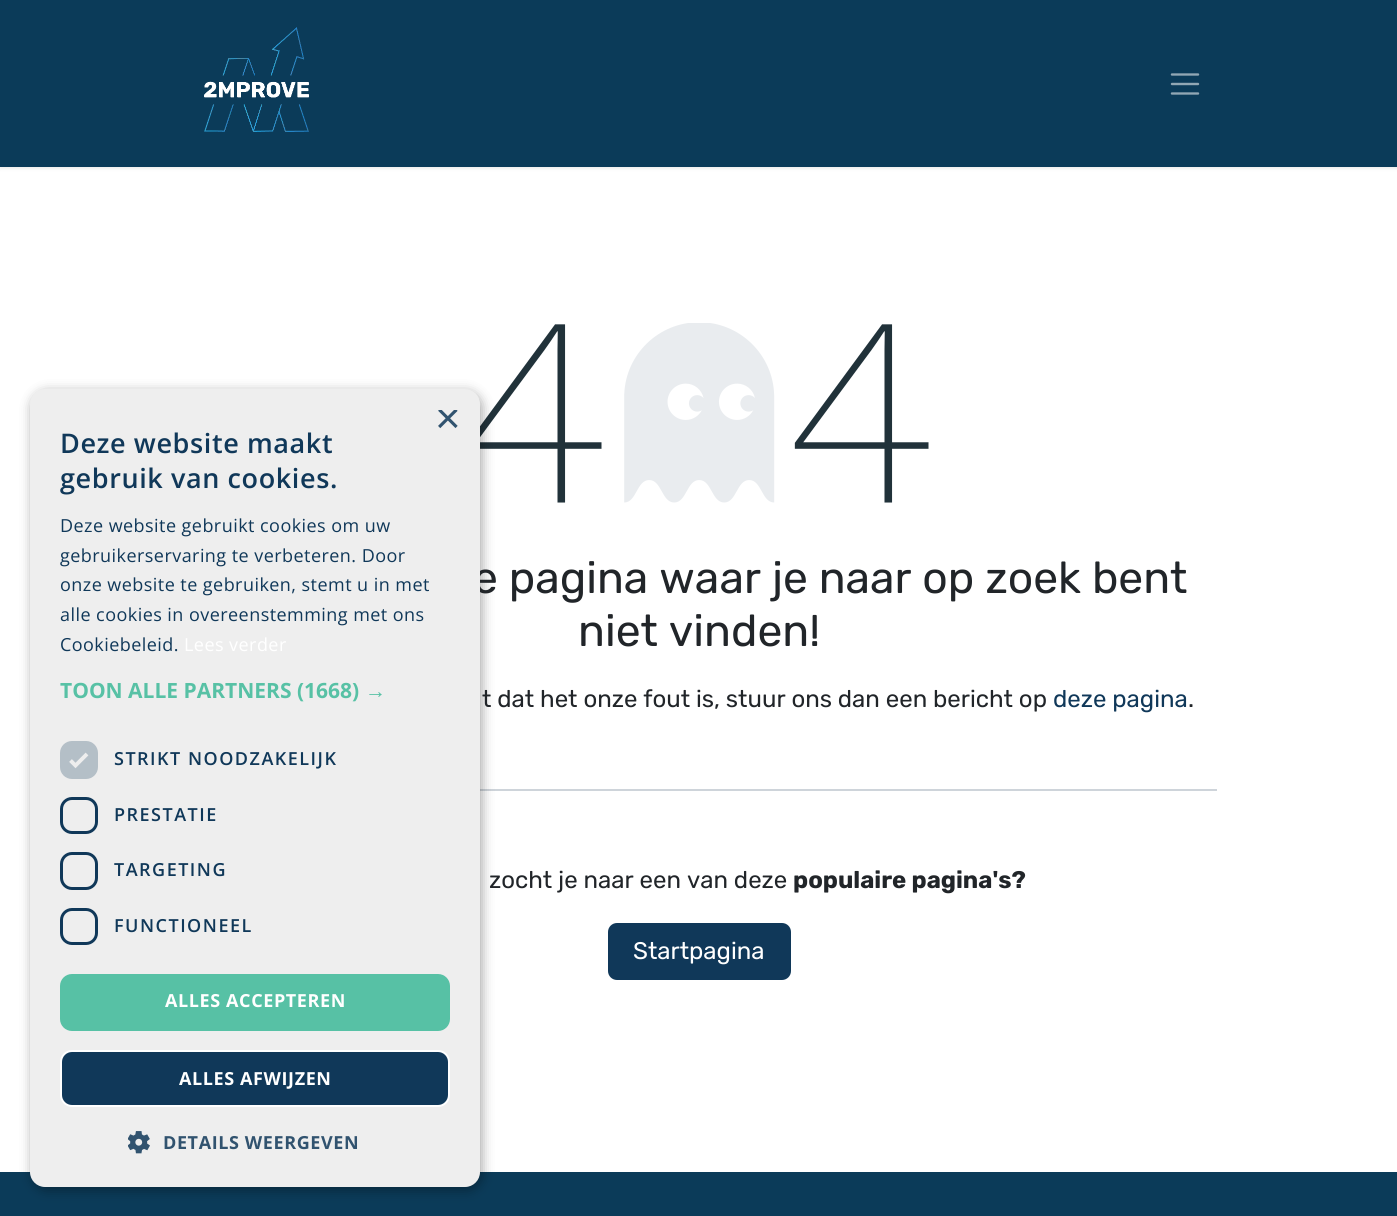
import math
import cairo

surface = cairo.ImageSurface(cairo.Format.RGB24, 1397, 1216)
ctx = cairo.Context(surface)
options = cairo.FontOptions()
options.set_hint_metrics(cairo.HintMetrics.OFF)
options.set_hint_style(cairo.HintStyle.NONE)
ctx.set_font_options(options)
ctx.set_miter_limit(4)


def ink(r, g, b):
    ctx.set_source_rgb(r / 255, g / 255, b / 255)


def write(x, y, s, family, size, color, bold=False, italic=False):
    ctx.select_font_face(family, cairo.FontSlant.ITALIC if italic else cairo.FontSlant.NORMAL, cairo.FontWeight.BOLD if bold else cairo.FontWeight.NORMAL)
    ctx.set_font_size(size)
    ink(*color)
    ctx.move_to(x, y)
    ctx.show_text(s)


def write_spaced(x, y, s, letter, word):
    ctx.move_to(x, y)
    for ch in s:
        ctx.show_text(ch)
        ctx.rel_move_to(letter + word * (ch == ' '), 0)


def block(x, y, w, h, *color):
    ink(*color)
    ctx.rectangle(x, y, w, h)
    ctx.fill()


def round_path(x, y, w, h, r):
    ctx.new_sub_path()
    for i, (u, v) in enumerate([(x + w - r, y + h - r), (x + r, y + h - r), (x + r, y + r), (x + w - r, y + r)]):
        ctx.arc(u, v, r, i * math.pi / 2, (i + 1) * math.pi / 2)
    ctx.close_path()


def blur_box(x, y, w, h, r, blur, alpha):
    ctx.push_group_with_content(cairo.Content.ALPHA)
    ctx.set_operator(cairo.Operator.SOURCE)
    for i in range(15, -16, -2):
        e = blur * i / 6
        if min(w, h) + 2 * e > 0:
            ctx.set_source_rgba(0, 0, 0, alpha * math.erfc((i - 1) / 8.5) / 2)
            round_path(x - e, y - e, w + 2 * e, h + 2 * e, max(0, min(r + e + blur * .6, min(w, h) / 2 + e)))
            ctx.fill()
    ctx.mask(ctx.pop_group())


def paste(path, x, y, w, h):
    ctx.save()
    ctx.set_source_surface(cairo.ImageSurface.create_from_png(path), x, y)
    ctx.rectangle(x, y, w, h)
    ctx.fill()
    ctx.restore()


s1 = dict(family="Rubik", size=44.4, color=(33, 37, 41))
s2 = dict(family="Liberation Sans", size=44, color=(49, 83, 111))
s3 = dict(family="Open Sans", size=21, color=(87, 193, 165), bold=True)
s4 = dict(family="Liberation Sans", size=21, color=(87, 193, 165), bold=True)
s5 = dict(family="Rubik", size=24, color=(33, 37, 41))
s6 = dict(family="Rubik", size=24, color=(16, 56, 89))
s7 = dict(family="Rubik", size=24, color=(33, 37, 41), bold=True)
s8 = dict(family="Rubik", size=24, color=(255, 255, 255))

ink(255, 255, 255)
ctx.paint()
paste("pic3.png", 480, 323, 449, 180)
block(480, 789, 737, 2, 206, 212, 218)
block(0, 1172, 1397, 44, 11, 59, 89)
ink(0, 0, 0)
blur_box(32, 392, 450, 798, 15, 6, 0.35)
write(473, 593, "e pagina waar je naar op zoek bent", **s1)
ink(238, 238, 238)
round_path(30, 389, 450, 798, 15)
ctx.fill()
ctx.save()
ctx.rectangle(435, 410, 23, 22)
ctx.clip()
write(435, 433, "×", **s2)
ctx.restore()
ctx.select_font_face("Open Sans SemiBold")
ctx.set_font_size(27)
ink(16, 56, 89)
write_spaced(60, 453, "Deze website maakt", 0.6, 0)
write_spaced(60, 488, "gebruik van cookies.", 0.6, 0)
ctx.select_font_face("Open Sans")
ctx.set_font_size(18)
write_spaced(60, 532, "Deze website gebruikt cookies om uw", 0.45, 0)
write_spaced(60, 562, "gebruikerservaring te verbeteren. Door", 0.45, 0)
write_spaced(60, 591, "onze website te gebruiken, stemt u in met", 0.45, 0)
write_spaced(60, 621, "alle cookies in overeenstemming met ons", 0.45, 0)
write_spaced(60, 651, "Cookiebeleid.", 0.45, 0)
ink(255, 255, 255)
write_spaced(184, 651, "Lees verder", 0.45, 0)
write(60, 698, "TOON ALLE PARTNERS (1668)", **s3)
write(365, 698, "→", **s4)
ink(180, 191, 199)
round_path(60, 741, 38, 38, 12)
ctx.fill()
ctx.new_path()
ctx.move_to(70.5, 760.5)
ctx.line_to(75.5, 765.5)
ctx.line_to(87, 754)
ink(238, 238, 238)
ctx.set_line_width(3.9)
ctx.stroke()
ctx.select_font_face("Open Sans SemiBold")
ctx.set_font_size(18)
ink(16, 56, 89)
write_spaced(114, 765, "STRIKT NOODZAKELIJK", 1.5, 0)
round_path(61.5, 798.5, 35, 34, 10.5)
ctx.set_line_width(3)
ctx.stroke()
write_spaced(114, 821, "PRESTATIE", 1.5, 0)
round_path(61.5, 853.5, 35, 35, 10.5)
ctx.stroke()
write_spaced(114, 876, "TARGETING", 1.5, 0)
round_path(61.5, 909.5, 35, 34, 10.5)
ctx.stroke()
write_spaced(114, 932, "FUNCTIONEEL", 1.5, 0)
ink(87, 193, 165)
round_path(60, 974, 390, 57, 12)
ctx.fill()
ctx.select_font_face("Open Sans", cairo.FontSlant.NORMAL, cairo.FontWeight.BOLD)
ink(255, 255, 255)
write_spaced(165, 1007, "ALLES ACCEPTEREN", 0.6, 0)
ink(16, 56, 89)
round_path(61, 1051, 388, 55, 11)
ctx.fill_preserve()
ink(255, 255, 255)
ctx.set_line_width(2)
ctx.stroke()
write_spaced(179, 1085, "ALLES AFWIJZEN", 0.6, 0)
paste("pic1.png", 128, 1131, 22, 23)
ink(49, 83, 111)
write_spaced(163, 1149, "DETAILS WEERGEVEN", 0.6, 0)
ink(0, 0, 0)
blur_box(0, 2, 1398, 166, 0, 2, 0.1)
block(0, 0, 1397, 167, 11, 59, 89)
paste("pic2.png", 204, 27, 105, 105)
ctx.new_path()
ctx.move_to(1172, 74.5)
ctx.line_to(1198, 74.5)
ctx.move_to(1172, 84)
ctx.line_to(1198, 84)
ctx.move_to(1172, 93.5)
ctx.line_to(1198, 93.5)
ink(145, 167, 180)
ctx.set_line_width(2.4)
ctx.set_line_cap(cairo.LineCap.ROUND)
ctx.stroke()
write(578, 646, "niet vinden!", **s1)
write(482, 707, "t dat het onze fout is, stuur ons dan een bericht op", **s5)
write(1053, 707, "deze pagina", **s6)
write(1188, 707, ".", **s5)
write(489, 888, "zocht je naar een van deze", **s5)
write(793, 888, "populaire pagina's?", **s7)
ink(16, 56, 89)
round_path(609, 924, 181, 55, 8)
ctx.fill_preserve()
ctx.set_line_width(2)
ctx.set_line_cap(cairo.LineCap.BUTT)
ctx.stroke()
write(633, 959, "Startpagina", **s8)
surface.write_to_png("screenshot.png")
